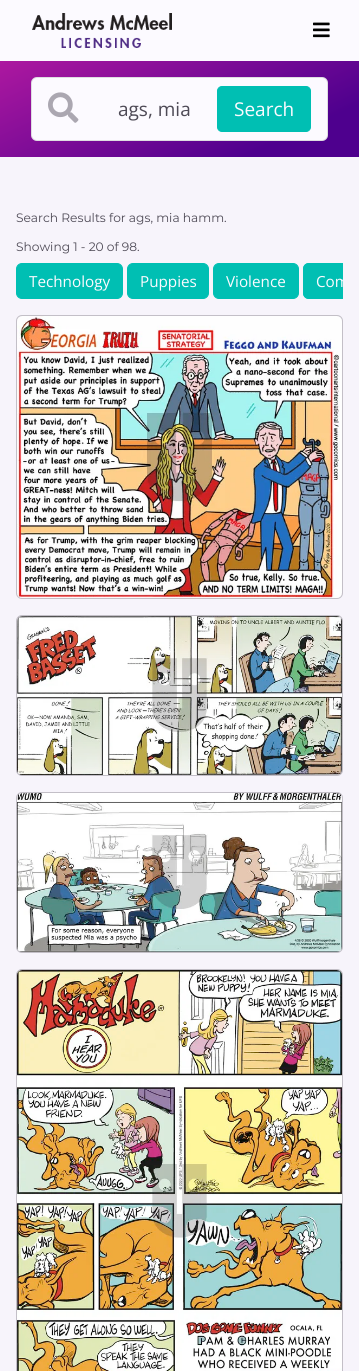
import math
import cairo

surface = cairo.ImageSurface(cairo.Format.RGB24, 359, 1371)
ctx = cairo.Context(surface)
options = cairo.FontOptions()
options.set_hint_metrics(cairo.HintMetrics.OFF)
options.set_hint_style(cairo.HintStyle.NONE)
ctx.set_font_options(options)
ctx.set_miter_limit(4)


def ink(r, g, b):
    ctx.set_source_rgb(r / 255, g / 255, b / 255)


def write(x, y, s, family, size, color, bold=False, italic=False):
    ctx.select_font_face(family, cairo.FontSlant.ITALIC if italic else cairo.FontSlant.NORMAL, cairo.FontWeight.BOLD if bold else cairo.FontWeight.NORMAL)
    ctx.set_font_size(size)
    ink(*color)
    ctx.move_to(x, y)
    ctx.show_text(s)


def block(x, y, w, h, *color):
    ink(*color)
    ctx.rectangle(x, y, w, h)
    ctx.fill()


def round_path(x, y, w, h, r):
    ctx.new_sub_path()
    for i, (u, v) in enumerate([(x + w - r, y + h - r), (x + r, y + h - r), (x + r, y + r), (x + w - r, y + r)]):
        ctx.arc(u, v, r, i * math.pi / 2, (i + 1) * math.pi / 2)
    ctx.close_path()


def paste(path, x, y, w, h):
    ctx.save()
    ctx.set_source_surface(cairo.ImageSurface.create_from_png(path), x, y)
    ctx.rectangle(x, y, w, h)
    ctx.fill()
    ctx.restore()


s1 = dict(family="Open Sans", size=19, color=(78, 74, 86))
s2 = dict(family="Open Sans", size=19, color=(252, 250, 255))
s3 = dict(family="Montserrat", size=12.2, color=(78, 74, 86))
s4 = dict(family="Open Sans", size=15.25, color=(252, 250, 255))

ink(247, 244, 251)
ctx.paint()
block(0, 0, 359, 61, 252, 250, 255)
paste("pic1.png", 32, 13, 140, 35)
paste("pic2.png", 313, 22, 17, 16)
gradient = cairo.LinearGradient(129, 0.8, 230, 217)
gradient.add_color_stop_rgba(0, 0.678, 0.094, 0.627, 1)
gradient.add_color_stop_rgba(0.8, 0.306, 0, 0.557, 1)
ctx.set_source(gradient)
ctx.rectangle(0, 61, 359, 96)
ctx.fill()
ink(252, 250, 255)
round_path(31, 77, 297, 64, 6)
ctx.fill()
round_path(31.5, 77.5, 296, 63, 5.5)
ctx.set_source_rgba(0, 0, 0, 0.12)
ctx.set_line_width(1)
ctx.stroke()
paste("pic3.png", 48, 92, 31, 31)
write(118, 116, "ags, mia", **s1)
ink(0, 191, 179)
round_path(217.5, 86.5, 93, 45, 4.5)
ctx.fill_preserve()
ctx.stroke()
write(234, 116, "Search", **s2)
write(16, 222, "Search Results for ags, mia hamm.", **s3)
write(16, 251, "Showing 1 - 20 of 98.", **s3)
ink(0, 191, 179)
round_path(16.5, 263.5, 106, 35, 5.5)
ctx.fill_preserve()
ctx.stroke()
write(29, 287, "Technology", **s4)
ink(0, 191, 179)
round_path(127.5, 263.5, 81, 35, 5.5)
ctx.fill_preserve()
ctx.stroke()
write(140, 287, "Puppies", **s4)
ink(0, 191, 179)
round_path(213.5, 263.5, 85, 35, 5.5)
ctx.fill_preserve()
ctx.stroke()
write(226, 287, "Violence", **s4)
ink(0, 191, 179)
ctx.new_path()
ctx.move_to(309, 263)
ctx.line_to(343, 263)
ctx.line_to(343, 299)
ctx.line_to(309, 299)
ctx.curve_to(305.5, 299, 303, 296.5, 303, 293)
ctx.line_to(303, 269)
ctx.curve_to(303, 265.5, 305.5, 263, 309, 263)
ctx.close_path()
ctx.fill()
ctx.save()
ctx.rectangle(16, 263, 327, 36)
ctx.clip()
round_path(303.5, 263.5, 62, 35, 5.5)
ctx.stroke()
write(316, 287, "Com", **s4)
ctx.restore()
ink(221, 217, 226)
round_path(16, 315, 327, 284, 6)
ctx.fill()
round_path(16.5, 315.5, 326, 283, 5.5)
ctx.set_source_rgba(0, 0, 0, 0.12)
ctx.stroke()
paste("pic4.png", 17, 316, 325, 282)
ink(221, 217, 226)
round_path(16, 615, 327, 161, 6)
ctx.fill()
round_path(16.5, 615.5, 326, 160, 5.5)
ctx.set_source_rgba(0, 0, 0, 0.12)
ctx.stroke()
paste("pic5.png", 17, 616, 325, 159)
ink(221, 217, 226)
round_path(16, 792, 327, 161, 6)
ctx.fill()
round_path(16.5, 792.5, 326, 160, 5.5)
ctx.set_source_rgba(0, 0, 0, 0.12)
ctx.stroke()
paste("pic6.png", 17, 793, 325, 159)
ink(221, 217, 226)
round_path(16, 969, 327, 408, 6)
ctx.fill()
round_path(16.5, 969.5, 326, 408, 5.5)
ctx.set_source_rgba(0, 0, 0, 0.12)
ctx.stroke()
paste("pic7.png", 17, 970, 325, 401)
surface.write_to_png("screenshot.png")
